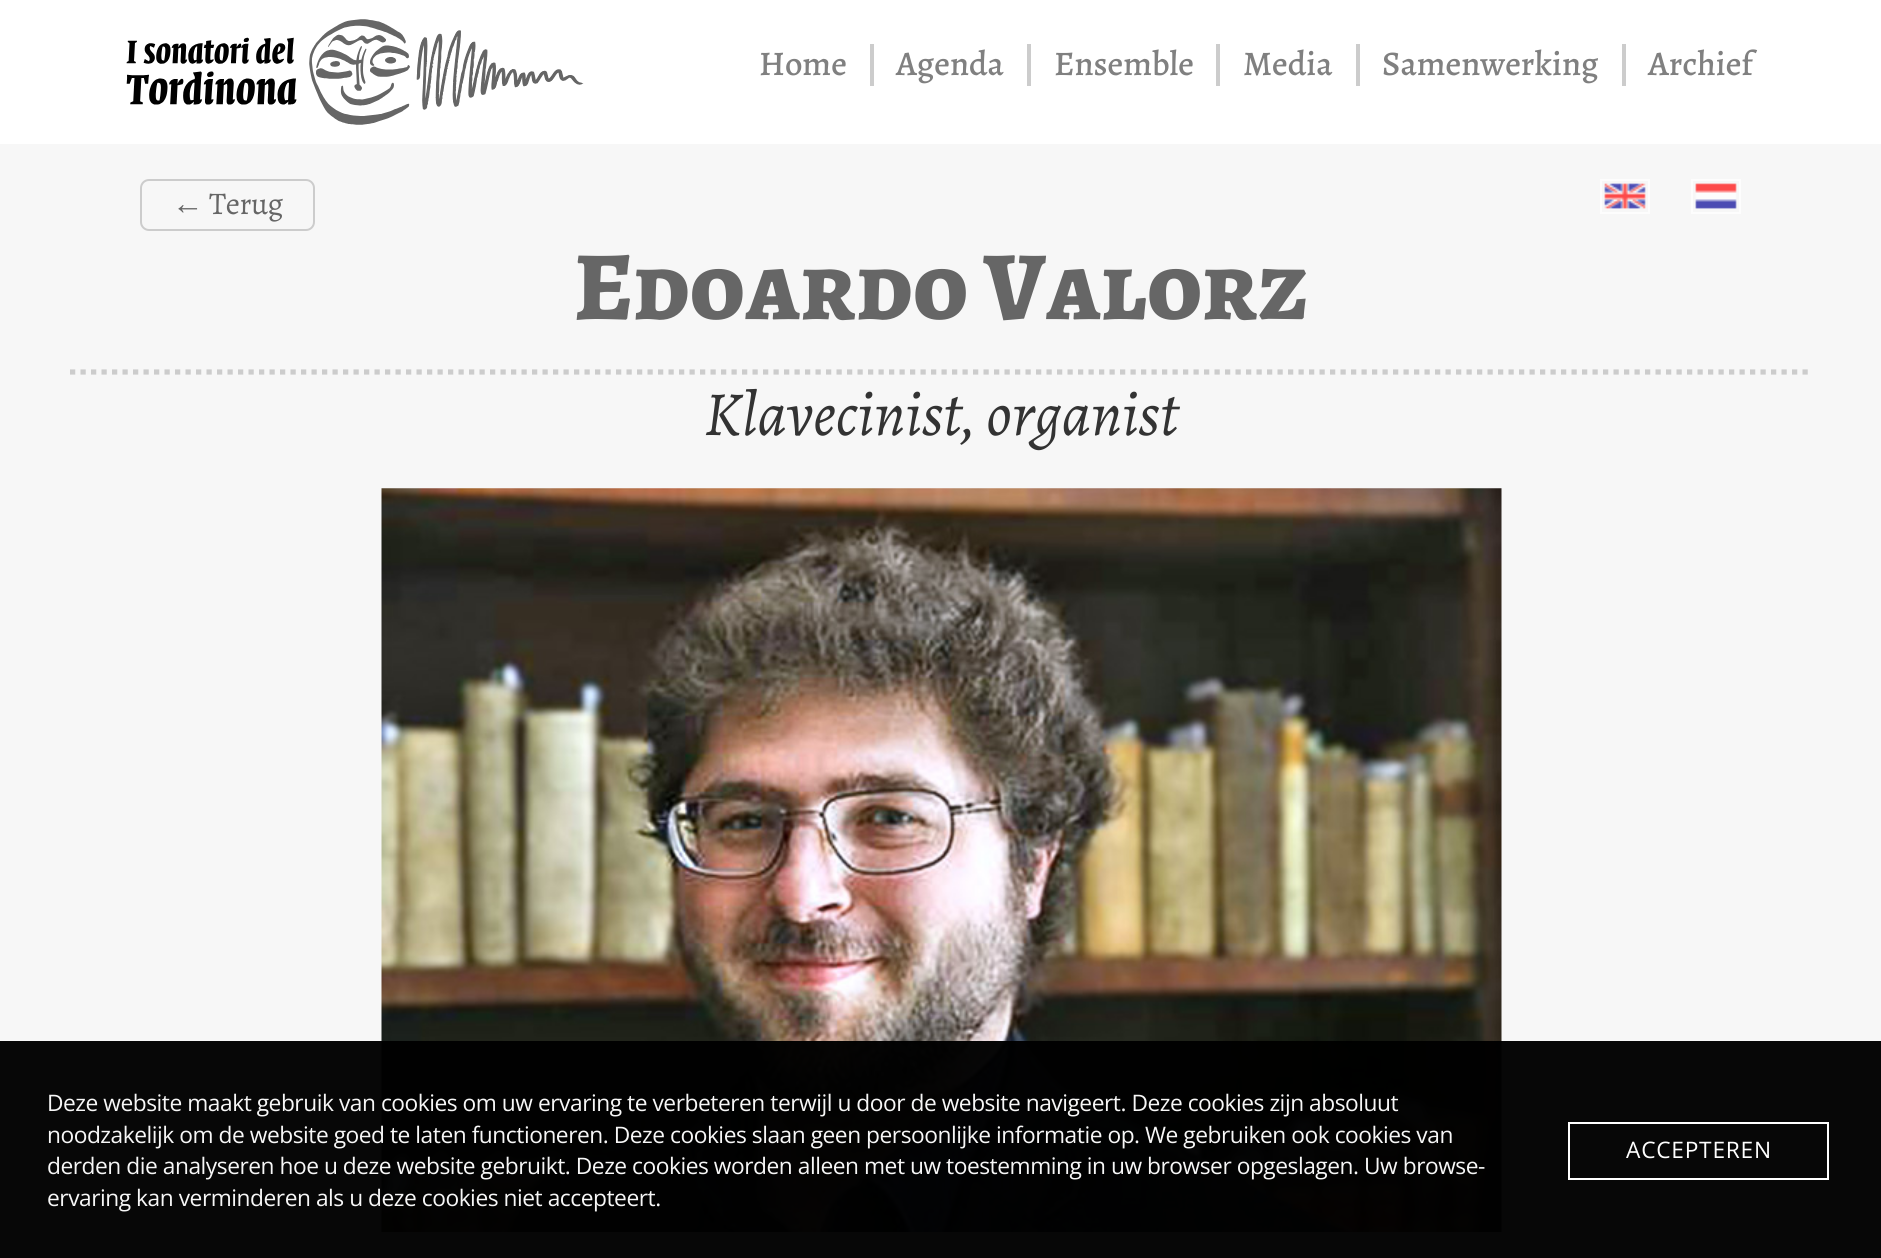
import math
import cairo

surface = cairo.ImageSurface(cairo.Format.RGB24, 1881, 1258)
ctx = cairo.Context(surface)
options = cairo.FontOptions()
options.set_hint_metrics(cairo.HintMetrics.OFF)
options.set_hint_style(cairo.HintStyle.NONE)
ctx.set_font_options(options)
ctx.set_miter_limit(4)


def ink(r, g, b):
    ctx.set_source_rgb(r / 255, g / 255, b / 255)


def write(x, y, s, family, size, color, bold=False, italic=False):
    ctx.select_font_face(family, cairo.FontSlant.ITALIC if italic else cairo.FontSlant.NORMAL, cairo.FontWeight.BOLD if bold else cairo.FontWeight.NORMAL)
    ctx.set_font_size(size)
    ink(*color)
    ctx.move_to(x, y)
    ctx.show_text(s)


def write_spaced(x, y, s, letter, word):
    ctx.move_to(x, y)
    for ch in s:
        ctx.show_text(ch)
        ctx.rel_move_to(letter + word * (ch == ' '), 0)


def block(x, y, w, h, *color):
    ink(*color)
    ctx.rectangle(x, y, w, h)
    ctx.fill()


def round_path(x, y, w, h, r):
    ctx.new_sub_path()
    for i, (u, v) in enumerate([(x + w - r, y + h - r), (x + r, y + h - r), (x + r, y + r), (x + w - r, y + r)]):
        ctx.arc(u, v, r, i * math.pi / 2, (i + 1) * math.pi / 2)
    ctx.close_path()


def paste(path, x, y, w, h):
    ctx.save()
    ctx.set_source_surface(cairo.ImageSurface.create_from_png(path), x, y)
    ctx.rectangle(x, y, w, h)
    ctx.fill()
    ctx.restore()


s1 = dict(family="Alegreya Medium", size=34.5, color=(128, 128, 128))
s2 = dict(family="Alegreya SC ExtraBold", size=98, color=(102, 102, 102))
s3 = dict(family="Alegreya", size=63, color=(51, 51, 51), italic=True)

ink(247, 247, 247)
ctx.paint()
block(0, 0, 1881, 144, 255, 255, 255)
paste("pic1.png", 126, 19, 458, 106)
write(759, 75, "Home", **s1)
block(870, 44, 4, 42, 204, 204, 204)
write(896, 75, "Agenda", **s1)
block(1027, 44, 4, 42, 204, 204, 204)
write(1054, 75, "Ensemble", **s1)
block(1216, 44, 4, 42, 204, 204, 204)
write(1243, 75, "Media", **s1)
block(1356, 44, 4, 42, 204, 204, 204)
write(1382, 75, "Samenwerking", **s1)
block(1622, 44, 4, 42, 204, 204, 204)
write(1648, 75, "Archief", **s1)
ctx.new_path()
ctx.move_to(70, 372)
ctx.line_to(1811, 372)
ink(204, 204, 204)
ctx.set_line_width(5.2)
ctx.set_dash([5.25, 5.25])
ctx.stroke()
round_path(141, 180, 173, 50, 8)
ctx.set_line_width(2)
ctx.set_dash([])
ctx.stroke()
ctx.select_font_face("Liberation Serif")
ctx.set_font_size(31.5)
ink(102, 102, 102)
write_spaced(172, 214, "←", -0.47, 0)
ctx.select_font_face("Alegreya")
write_spaced(209, 214, "Terug", -0.47, 0)
paste("pic2.png", 1604, 183, 42, 26)
ctx.rectangle(1601, 180, 48, 33)
ink(253, 253, 253)
ctx.stroke()
paste("pic3.png", 1695, 183, 42, 26)
ctx.rectangle(1692, 180, 48, 33)
ctx.stroke()
write(574, 319, "Edoardo Valorz", **s2)
write(704, 435, "Klavecinist, organist", **s3)
paste("pic4.png", 381, 488, 1121, 744)
ctx.set_source_rgba(0, 0, 0, 0.97)
ctx.rectangle(0, 1041, 1881, 217)
ctx.fill()
ctx.select_font_face("Open Sans")
ctx.set_font_size(22.75)
ink(247, 247, 247)
write_spaced(47, 1111, "Deze website maakt gebruik van cookies om uw ervaring te verbeteren terwijl u door de website navigeert. Deze cookies zijn absoluut", -0.47, 0)
write_spaced(47, 1143, "noodzakelijk om de website goed te laten functioneren. Deze cookies slaan geen persoonlijke informatie op. We gebruiken ook cookies van", -0.47, 0)
write_spaced(47, 1174, "derden die analyseren hoe u deze website gebruikt. Deze cookies worden alleen met uw toestemming in uw browser opgeslagen. Uw browse-", -0.47, 0)
write_spaced(47, 1206, "ervaring kan verminderen als u deze cookies niet accepteert.", -0.47, 0)
ctx.rectangle(1569, 1123, 259, 56)
ink(255, 255, 255)
ctx.stroke()
write_spaced(1626, 1158, "ACCEPTEREN", 0.75, 0)
surface.write_to_png("screenshot.png")
